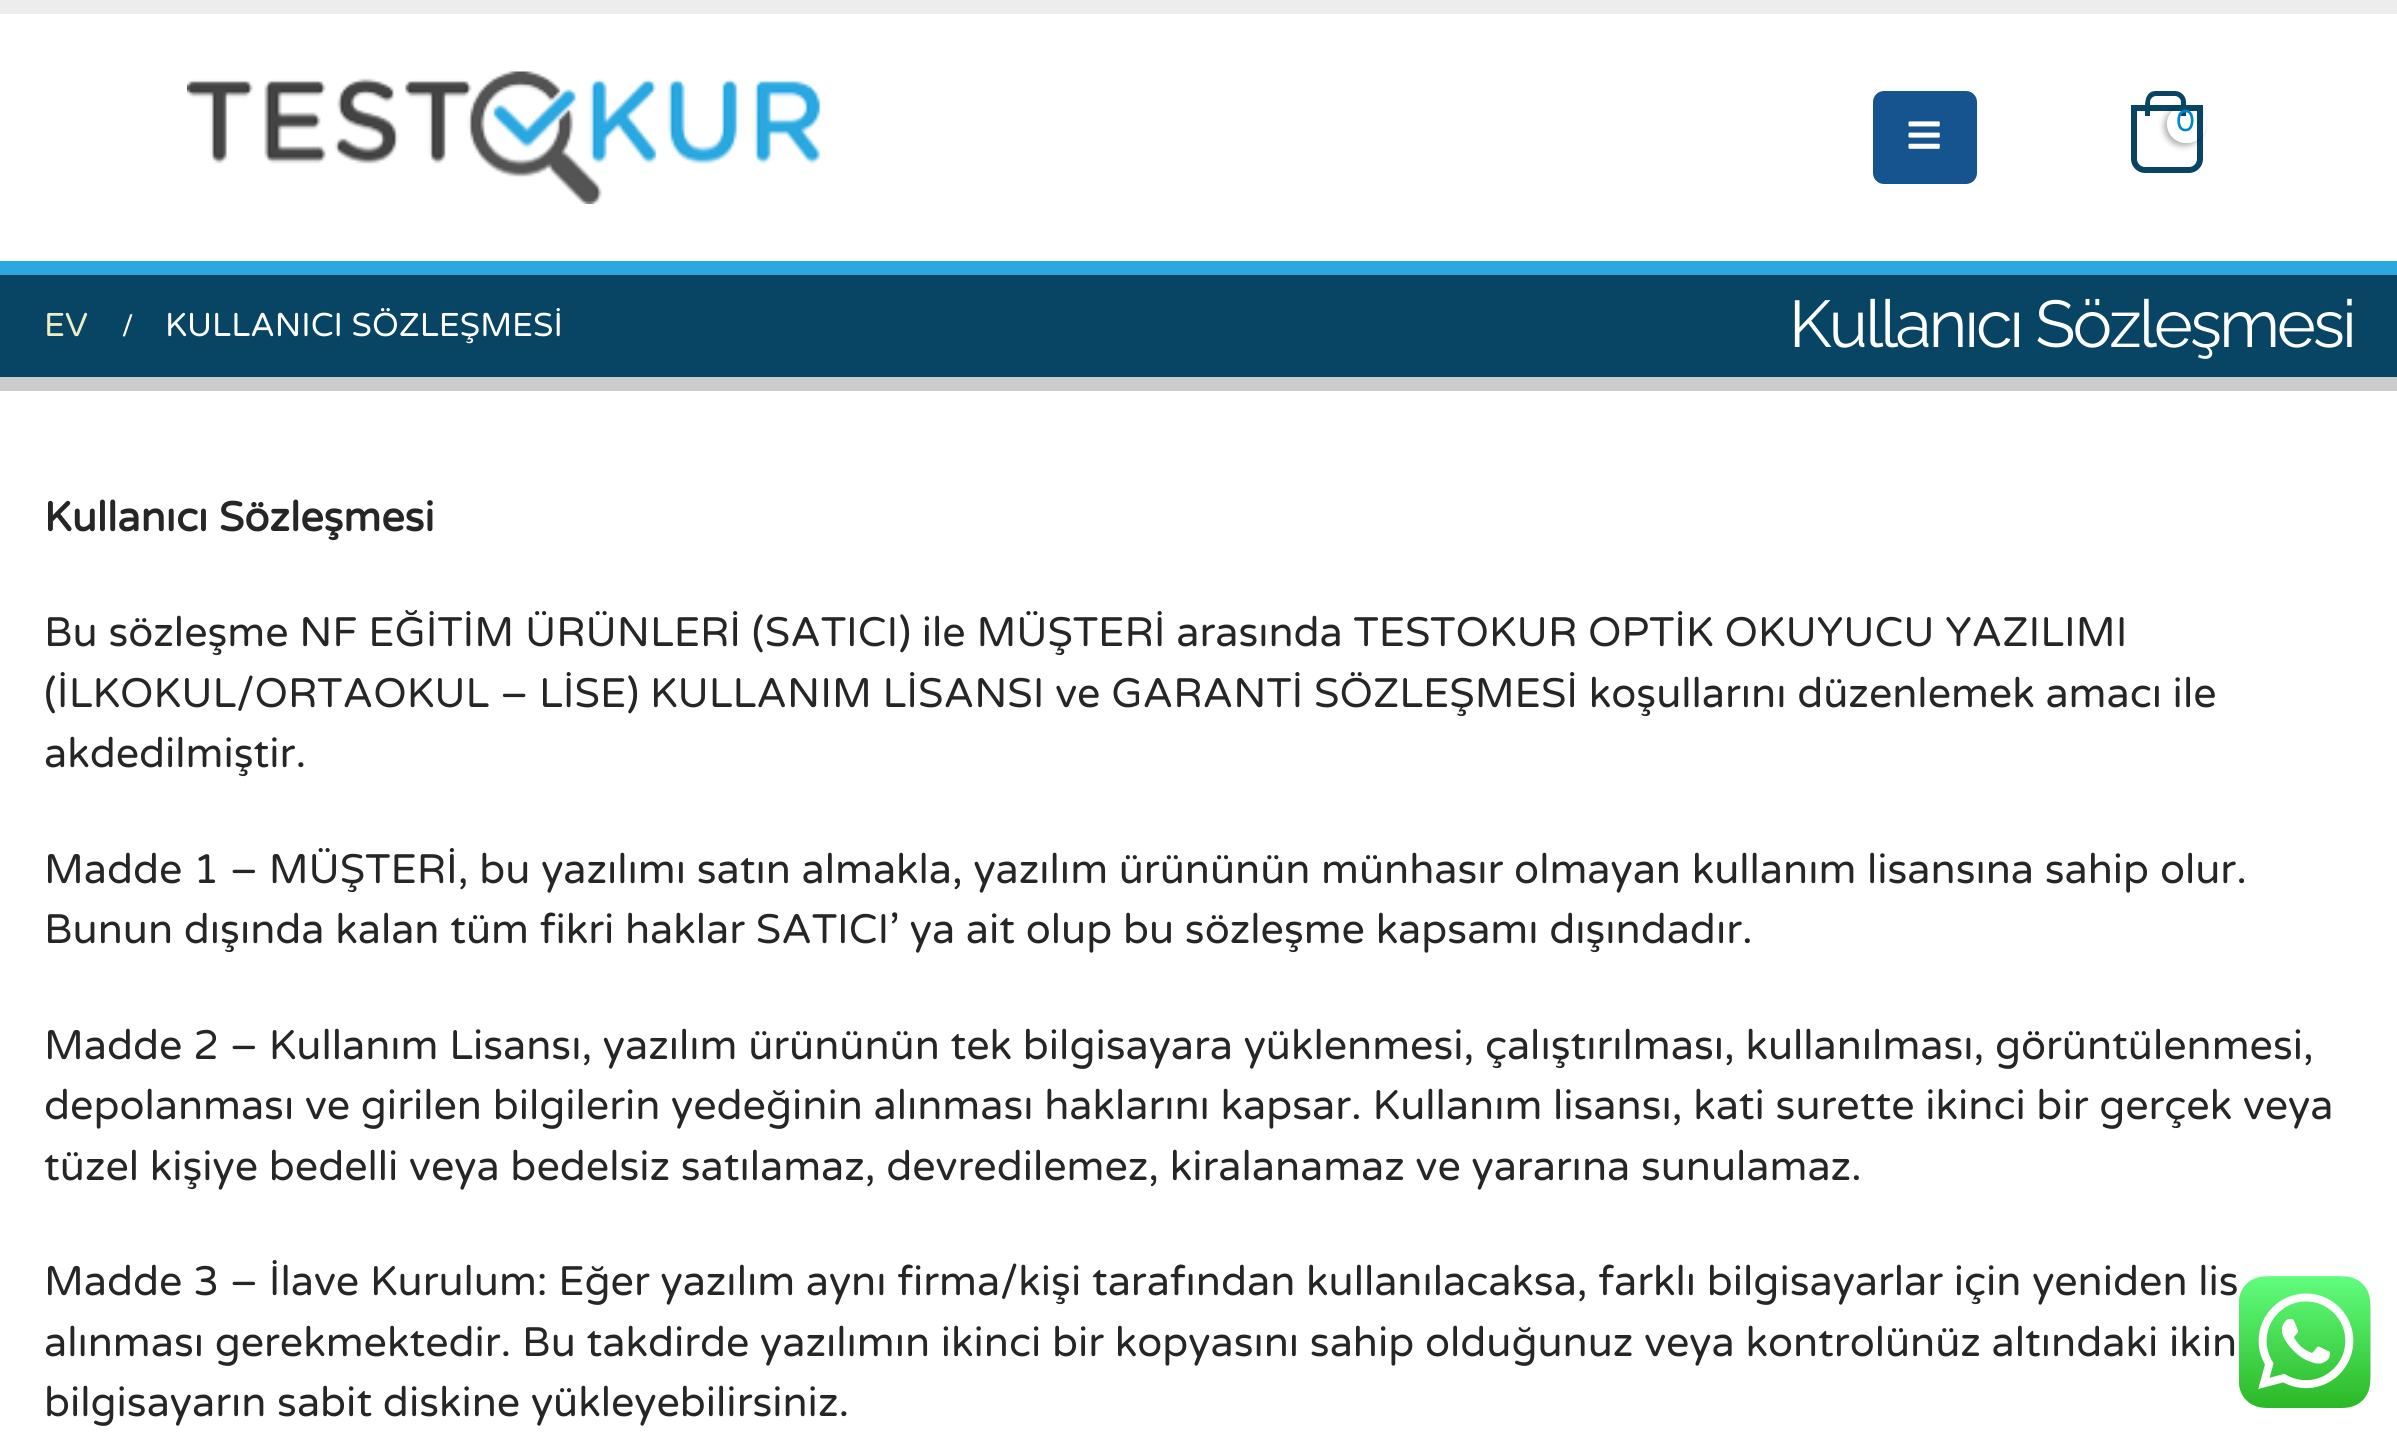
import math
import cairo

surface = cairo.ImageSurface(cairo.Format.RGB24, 2397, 1433)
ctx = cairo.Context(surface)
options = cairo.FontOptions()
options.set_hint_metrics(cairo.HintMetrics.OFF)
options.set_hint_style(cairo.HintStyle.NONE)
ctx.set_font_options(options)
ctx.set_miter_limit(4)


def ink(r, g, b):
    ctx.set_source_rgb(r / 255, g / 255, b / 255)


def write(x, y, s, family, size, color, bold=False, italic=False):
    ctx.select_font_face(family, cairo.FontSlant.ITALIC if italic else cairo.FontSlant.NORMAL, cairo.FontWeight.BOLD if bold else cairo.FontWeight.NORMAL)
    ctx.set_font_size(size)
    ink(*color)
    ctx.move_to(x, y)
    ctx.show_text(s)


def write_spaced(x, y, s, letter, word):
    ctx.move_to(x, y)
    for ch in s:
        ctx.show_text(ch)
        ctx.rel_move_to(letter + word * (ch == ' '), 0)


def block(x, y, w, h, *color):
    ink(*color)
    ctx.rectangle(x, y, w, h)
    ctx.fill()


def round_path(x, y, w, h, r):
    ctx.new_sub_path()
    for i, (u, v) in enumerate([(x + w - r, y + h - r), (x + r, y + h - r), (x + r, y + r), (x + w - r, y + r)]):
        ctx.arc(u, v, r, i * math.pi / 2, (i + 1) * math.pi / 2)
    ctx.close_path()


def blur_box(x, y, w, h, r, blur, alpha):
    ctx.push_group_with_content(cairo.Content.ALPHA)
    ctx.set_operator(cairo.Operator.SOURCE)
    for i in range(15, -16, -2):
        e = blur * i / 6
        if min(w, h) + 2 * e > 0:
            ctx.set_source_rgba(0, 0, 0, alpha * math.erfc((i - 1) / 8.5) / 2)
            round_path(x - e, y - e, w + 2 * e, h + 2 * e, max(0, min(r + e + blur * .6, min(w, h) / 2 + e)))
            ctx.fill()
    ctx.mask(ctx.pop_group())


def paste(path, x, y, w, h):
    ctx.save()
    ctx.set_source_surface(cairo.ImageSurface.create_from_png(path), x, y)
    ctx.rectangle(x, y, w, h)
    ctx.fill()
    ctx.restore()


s1 = dict(family="Varela Round", size=30, color=(0, 136, 204))
s2 = dict(family="Varela Round", size=33, color=(237, 237, 196))
s3 = dict(family="Liberation Serif", size=33, color=(255, 255, 255), bold=True)
s4 = dict(family="Varela Round", size=33, color=(255, 255, 255))
s5 = dict(family="Varela Round", size=41.25, color=(38, 38, 38), bold=True)
s6 = dict(family="Varela Round", size=41.25, color=(38, 38, 38))

ink(255, 255, 255)
ctx.paint()
block(0, 0, 2397, 14, 237, 237, 237)
paste("pic1.png", 187, 71, 634, 133)
ink(21, 84, 142)
round_path(1873, 91, 104, 93, 11)
ctx.fill()
paste("pic2.png", 1908, 121, 32, 28)
ctx.new_path()
ctx.move_to(2134, 108)
ctx.line_to(2200, 108)
ctx.line_to(2200, 159)
ctx.curve_to(2200, 165, 2195, 170, 2189, 170)
ctx.line_to(2145, 170)
ctx.curve_to(2139, 170, 2134, 165, 2134, 159)
ctx.close_path()
ink(8, 69, 100)
ctx.set_line_width(6)
ctx.stroke()
ctx.set_fill_rule(cairo.FillRule.EVEN_ODD)
ctx.new_path()
ctx.move_to(2156, 91)
ctx.line_to(2175, 91)
ctx.curve_to(2181, 91, 2186, 96, 2186, 102)
ctx.line_to(2186, 116)
ctx.line_to(2145, 116)
ctx.curve_to(2145, 107, 2143, 91, 2156, 91)
ctx.close_path()
ctx.move_to(2156, 96)
ctx.line_to(2175, 96)
ctx.curve_to(2178, 96, 2181, 99, 2181, 102)
ctx.line_to(2181, 116)
ctx.line_to(2150, 116)
ctx.line_to(2150, 102)
ctx.curve_to(2150, 99, 2153, 96, 2156, 96)
ctx.close_path()
ctx.fill()
ctx.save()
ctx.new_path()
ctx.move_to(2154, 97)
ctx.line_to(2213, 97)
ctx.line_to(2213, 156)
ctx.line_to(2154, 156)
ctx.close_path()
ctx.move_to(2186, 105)
ctx.line_to(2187, 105)
ctx.curve_to(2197.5, 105, 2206, 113.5, 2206, 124)
ctx.curve_to(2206, 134.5, 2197.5, 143, 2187, 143)
ctx.line_to(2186, 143)
ctx.curve_to(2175.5, 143, 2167, 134.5, 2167, 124)
ctx.curve_to(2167, 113.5, 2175.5, 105, 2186, 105)
ctx.close_path()
ctx.clip()
ink(0, 0, 0)
blur_box(2164, 107, 39, 39, 19.5, 3, 0.3)
ctx.restore()
write(2176, 131, "0", **s1)
block(0, 275, 2397, 102, 8, 69, 100)
block(0, 261, 2397, 14, 43, 168, 224)
block(0, 377, 2397, 14, 204, 204, 204)
write(44, 336, "EV", **s2)
write(123, 336, "/", **s3)
write(165, 336, "KULLANICI SÖZLEŞMESİ", **s4)
ctx.select_font_face("Raleway")
ctx.set_font_size(66)
write_spaced(1789, 347, "Kullanıcı Sözleşmesi", -2.75, 0)
write(44, 531, "Kullanıcı Sözleşmesi", **s5)
write(44, 646, "Bu sözleşme NF EĞİTİM ÜRÜNLERİ (SATICI) ile MÜŞTERİ arasında TESTOKUR OPTİK OKUYUCU YAZILIMI", **s6)
write(44, 707, "(İLKOKUL/ORTAOKUL – LİSE) KULLANIM LİSANSI ve GARANTİ SÖZLEŞMESİ koşullarını düzenlemek amacı ile", **s6)
write(44, 767, "akdedilmiştir.", **s6)
write(44, 883, "Madde 1 – MÜŞTERİ, bu yazılımı satın almakla, yazılım ürününün münhasır olmayan kullanım lisansına sahip olur.", **s6)
write(44, 943, "Bunun dışında kalan tüm fikri haklar SATICI’ ya ait olup bu sözleşme kapsamı dışındadır.", **s6)
write(44, 1059, "Madde 2 – Kullanım Lisansı, yazılım ürününün tek bilgisayara yüklenmesi, çalıştırılması, kullanılması, görüntülenmesi,", **s6)
write(44, 1119, "depolanması ve girilen bilgilerin yedeğinin alınması haklarını kapsar. Kullanım lisansı, kati surette ikinci bir gerçek veya", **s6)
write(44, 1180, "tüzel kişiye bedelli veya bedelsiz satılamaz, devredilemez, kiralanamaz ve yararına sunulamaz.", **s6)
write(44, 1295, "Madde 3 – İlave Kurulum: Eğer yazılım aynı firma/kişi tarafından kullanılacaksa, farklı bilgisayarlar için yeniden lis", **s6)
write(44, 1356, "alınması gerekmektedir. Bu takdirde yazılımın ikinci bir kopyasını sahip olduğunuz veya kontrolünüz altındaki ikin", **s6)
write(44, 1416, "bilgisayarın sabit diskine yükleyebilirsiniz.", **s6)
paste("pic3.png", 2239, 1276, 132, 132)
surface.write_to_png("screenshot.png")
